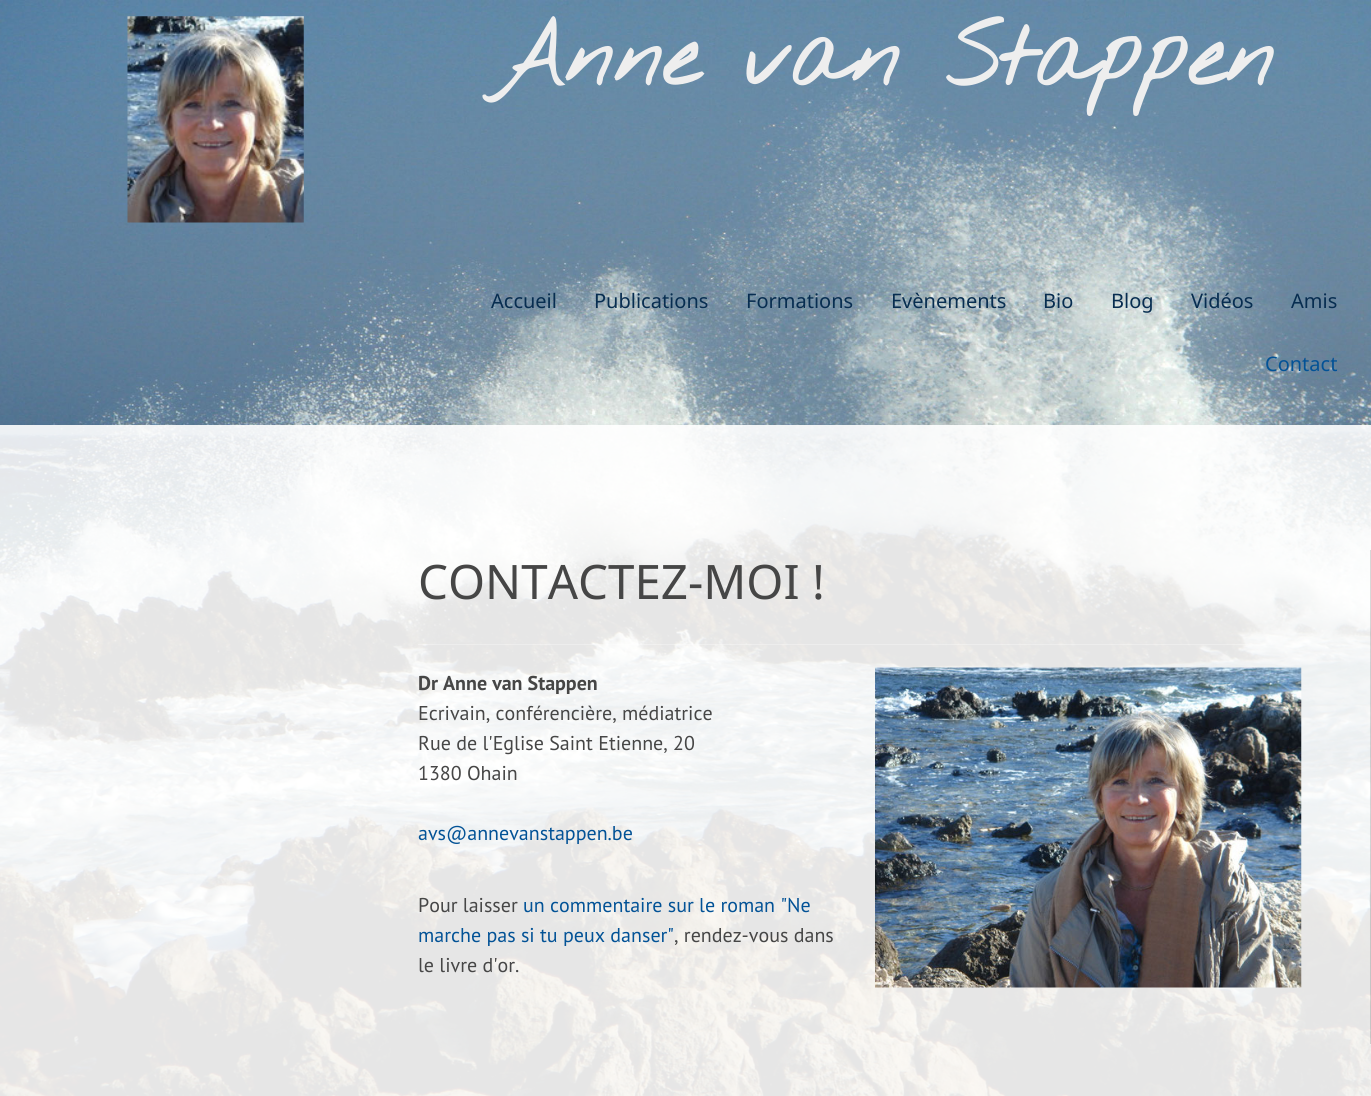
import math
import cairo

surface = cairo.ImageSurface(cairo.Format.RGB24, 1371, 1096)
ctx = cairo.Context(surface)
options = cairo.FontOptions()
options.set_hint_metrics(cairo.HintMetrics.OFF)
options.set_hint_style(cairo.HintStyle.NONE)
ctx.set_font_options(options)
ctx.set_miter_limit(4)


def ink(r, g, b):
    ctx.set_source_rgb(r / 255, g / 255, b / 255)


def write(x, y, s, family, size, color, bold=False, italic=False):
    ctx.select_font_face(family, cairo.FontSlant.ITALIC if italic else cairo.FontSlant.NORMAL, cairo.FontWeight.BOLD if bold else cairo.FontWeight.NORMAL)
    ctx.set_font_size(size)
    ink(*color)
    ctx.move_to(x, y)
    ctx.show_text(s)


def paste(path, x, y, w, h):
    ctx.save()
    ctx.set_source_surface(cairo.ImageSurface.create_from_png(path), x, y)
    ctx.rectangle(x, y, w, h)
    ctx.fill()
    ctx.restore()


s1 = dict(family="Nothing You Could Do", size=87.5, color=(238, 238, 238), bold=True)
s2 = dict(family="Noto Sans", size=20, color=(7, 45, 80))
s3 = dict(family="Noto Sans", size=20, color=(2, 82, 150))
s4 = dict(family="Noto Sans", size=47.5, color=(70, 70, 70))
s5 = dict(family="PT Sans", size=20, color=(70, 70, 70), bold=True)
s6 = dict(family="PT Sans", size=20, color=(70, 70, 70))
s7 = dict(family="PT Sans", size=20, color=(2, 82, 150))

ink(255, 255, 255)
ctx.paint()
paste("pic1.png", 0, 0, 1371, 1096)
paste("pic2.png", 127, 16, 177, 207)
write(491, 85, "Anne van Stappen", **s1)
write(491, 308, "Accueil", **s2)
write(594, 308, "Publications", **s2)
write(746, 308, "Formations", **s2)
write(891, 308, "Evènements", **s2)
write(1043, 308, "Bio", **s2)
write(1111, 308, "Blog", **s2)
write(1191, 308, "Vidéos", **s2)
write(1291, 308, "Amis", **s2)
write(1265, 371, "Contact", **s3)
ctx.set_source_rgba(1, 1, 1, 0.9)
ctx.rectangle(0, 425, 1371, 671)
ctx.fill()
ctx.set_source_rgba(0, 0, 0, 0.15)
ctx.rectangle(1370, 550, 1, 494)
ctx.fill()
write(418, 599, "CONTACTEZ-MOI !", **s4)
ctx.set_source_rgba(1, 1, 1, 0.3)
ctx.rectangle(418, 644, 830, 1)
ctx.fill()
write(418, 690, "Dr Anne van Stappen", **s5)
write(418, 720, "Ecrivain, conférencière, médiatrice", **s6)
write(418, 750, "Rue de l'Eglise Saint Etienne, 20", **s6)
write(418, 780, "1380 Ohain", **s6)
write(418, 840, "avs@annevanstappen.be", **s7)
write(418, 912, "Pour laisser", **s6)
write(523, 912, "un commentaire sur le roman \"Ne", **s7)
write(418, 942, "marche pas si tu peux danser\"", **s7)
write(674, 942, ", rendez-vous dans", **s6)
write(418, 972, "le livre d'or.", **s6)
paste("pic3.png", 875, 667, 427, 321)
surface.write_to_png("screenshot.png")
